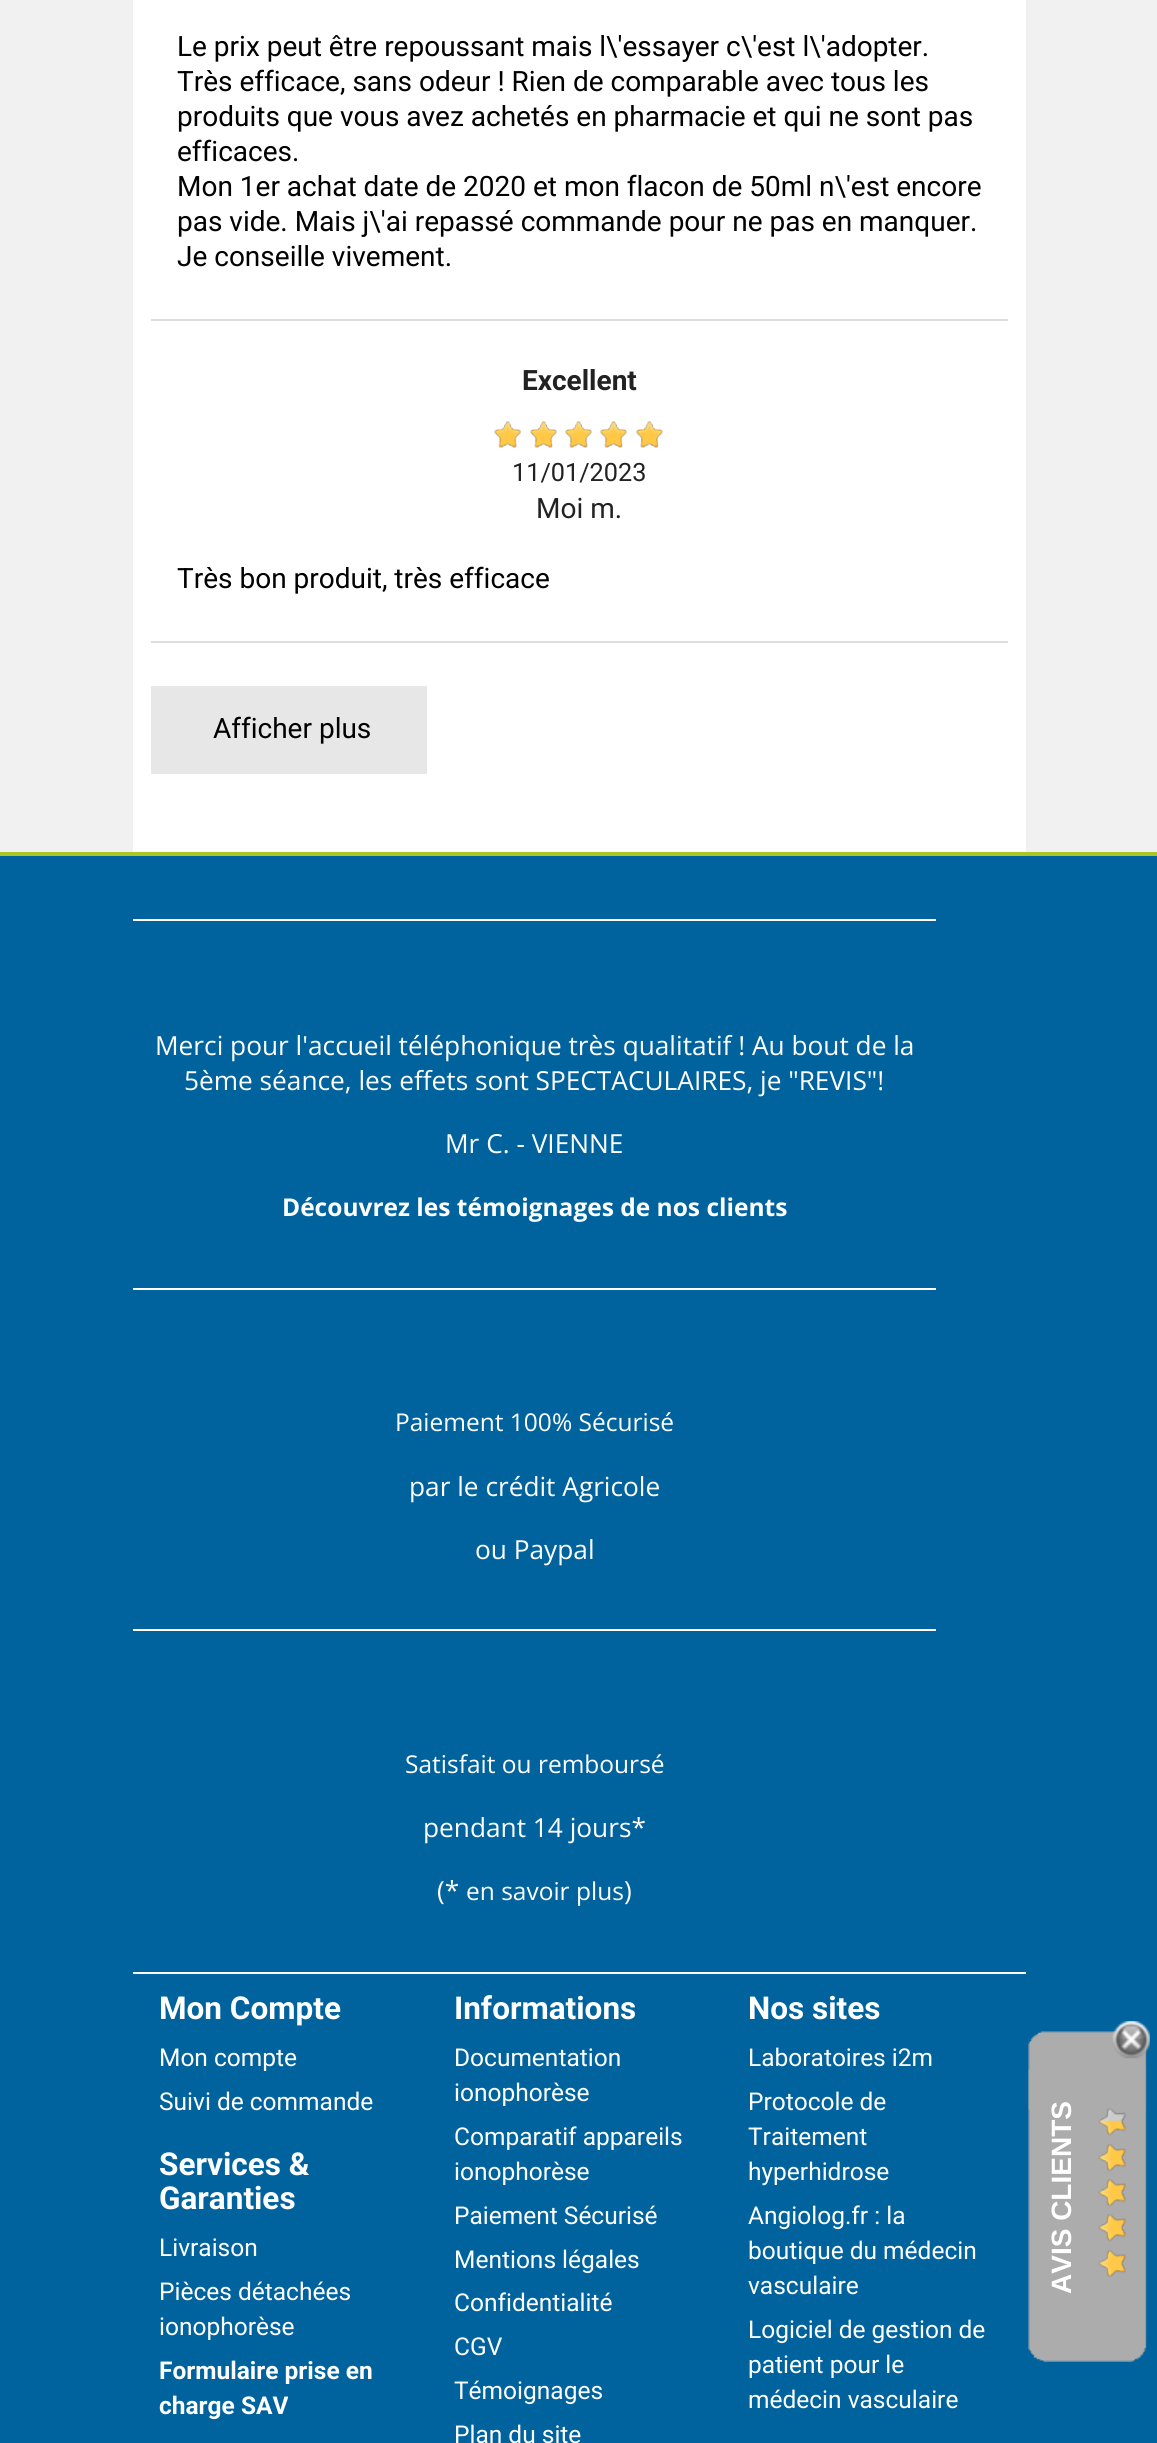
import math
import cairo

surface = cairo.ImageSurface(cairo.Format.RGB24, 1157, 2443)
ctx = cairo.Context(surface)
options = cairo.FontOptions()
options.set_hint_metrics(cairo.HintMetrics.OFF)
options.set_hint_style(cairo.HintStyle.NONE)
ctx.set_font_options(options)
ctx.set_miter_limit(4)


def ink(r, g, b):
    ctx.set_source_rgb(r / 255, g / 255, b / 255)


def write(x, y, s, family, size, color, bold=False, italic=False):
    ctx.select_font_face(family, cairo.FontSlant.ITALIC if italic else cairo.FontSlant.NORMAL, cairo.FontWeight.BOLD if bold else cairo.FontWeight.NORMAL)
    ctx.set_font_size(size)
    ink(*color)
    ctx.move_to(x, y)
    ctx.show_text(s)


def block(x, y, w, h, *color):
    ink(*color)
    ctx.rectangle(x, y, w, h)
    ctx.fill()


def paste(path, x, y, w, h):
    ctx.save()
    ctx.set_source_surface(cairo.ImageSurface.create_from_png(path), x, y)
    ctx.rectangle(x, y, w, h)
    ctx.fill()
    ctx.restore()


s1 = dict(family="Roboto", size=28, color=(0, 0, 0))
s2 = dict(family="Roboto", size=28, color=(34, 34, 34), bold=True)
s3 = dict(family="Roboto", size=25.25, color=(34, 34, 34))
s4 = dict(family="Roboto", size=28, color=(34, 34, 34))
s5 = dict(family="Open Sans", size=26.25, color=(255, 255, 255))
s6 = dict(family="Open Sans", size=24.5, color=(255, 255, 255), bold=True)
s7 = dict(family="Open Sans", size=24.5, color=(255, 255, 255))
s8 = dict(family="Roboto", size=31.5, color=(255, 255, 255), bold=True)
s9 = dict(family="Roboto", size=24.5, color=(255, 255, 255))
s10 = dict(family="Roboto", size=24.5, color=(255, 255, 255), bold=True)
s11 = dict(family="Liberation Sans", size=28, color=(255, 255, 255), bold=True)

ink(241, 241, 241)
ctx.paint()
block(133, 0, 893, 852, 255, 255, 255)
block(151, 319, 857, 2, 221, 221, 221)
write(177, 56, "Le prix peut être repoussant mais l\\'essayer c\\'est l\\'adopter.", **s1)
write(177, 91, "Très efficace, sans odeur ! Rien de comparable avec tous les", **s1)
write(177, 126, "produits que vous avez achetés en pharmacie et qui ne sont pas", **s1)
write(177, 161, "efficaces.", **s1)
write(177, 196, "Mon 1er achat date de 2020 et mon flacon de 50ml n\\'est encore", **s1)
write(177, 231, "pas vide. Mais j\\'ai repassé commande pour ne pas en manquer.", **s1)
write(177, 266, "Je conseille vivement.", **s1)
write(522, 390, "Excellent", **s2)
paste("pic1.png", 494, 421, 169, 27)
write(512, 481, "11/01/2023", **s3)
write(536, 518, "Moi m.", **s4)
block(151, 641, 857, 2, 221, 221, 221)
write(177, 588, "Très bon produit, très efficace", **s1)
block(151, 686, 276, 88, 231, 231, 231)
write(213, 738, "Afficher plus", **s1)
block(0, 856, 1157, 1587, 0, 99, 158)
block(0, 852, 1157, 4, 171, 198, 33)
block(133, 1972, 893, 2, 255, 255, 255)
block(133, 919, 803, 2, 255, 255, 255)
write(155, 1055, "Merci pour l'accueil téléphonique très qualitatif ! Au bout de la", **s5)
write(184, 1090, "5ème séance, les effets sont SPECTACULAIRES, je \"REVIS\"!", **s5)
write(445, 1153, "Mr C. - VIENNE", **s5)
write(282, 1216, "Découvrez les témoignages de nos clients", **s6)
block(133, 1288, 803, 2, 255, 255, 255)
write(395, 1431, "Paiement 100% Sécurisé", **s7)
write(409, 1496, "par le crédit Agricole", **s5)
write(475, 1559, "ou Paypal", **s5)
block(133, 1629, 803, 2, 255, 255, 255)
write(405, 1773, "Satisfait ou remboursé", **s7)
write(423, 1837, "pendant 14 jours*", **s5)
write(437, 1900, "(*", **s5)
write(466, 1900, "en savoir plus", **s7)
write(624, 1900, ")", **s5)
write(159, 2019, "Mon Compte", **s8)
write(159, 2066, "Mon compte", **s9)
write(159, 2110, "Suivi de commande", **s9)
write(159, 2175, "Services &", **s8)
write(159, 2209, "Garanties", **s8)
write(159, 2256, "Livraison", **s9)
write(159, 2300, "Pièces détachées", **s9)
write(159, 2335, "ionophorèse", **s9)
write(159, 2379, "Formulaire prise en", **s10)
write(159, 2414, "charge SAV", **s10)
write(454, 2019, "Informations", **s8)
write(454, 2066, "Documentation", **s9)
write(454, 2101, "ionophorèse", **s9)
write(454, 2145, "Comparatif appareils", **s9)
write(454, 2180, "ionophorèse", **s9)
write(454, 2224, "Paiement Sécurisé", **s9)
write(454, 2268, "Mentions légales", **s9)
write(454, 2311, "Confidentialité", **s9)
write(454, 2355, "CGV", **s9)
write(454, 2399, "Témoignages", **s9)
write(454, 2443, "Plan du site", **s9)
write(748, 2019, "Nos sites", **s8)
write(748, 2066, "Laboratoires i2m", **s9)
write(748, 2110, "Protocole de", **s9)
write(748, 2145, "Traitement", **s9)
write(748, 2180, "hyperhidrose", **s9)
write(748, 2224, "Angiolog.fr : la", **s9)
write(748, 2259, "boutique du médecin", **s9)
write(748, 2294, "vasculaire", **s9)
write(748, 2338, "Logiciel de gestion de", **s9)
write(748, 2373, "patient pour le", **s9)
write(748, 2408, "médecin vasculaire", **s9)
paste("pic3.png", 1028, 2031, 119, 331)
paste("pic2.png", 1112, 2021, 38, 38)
ctx.save()
ctx.translate(1071, 2294)
ctx.rotate(-90 * math.pi / 180)
write(0, 0, "AVIS CLIENTS", **s11)
ctx.restore()
paste("pic4.png", 1098, 2108, 28, 169)
surface.write_to_png("screenshot.png")
